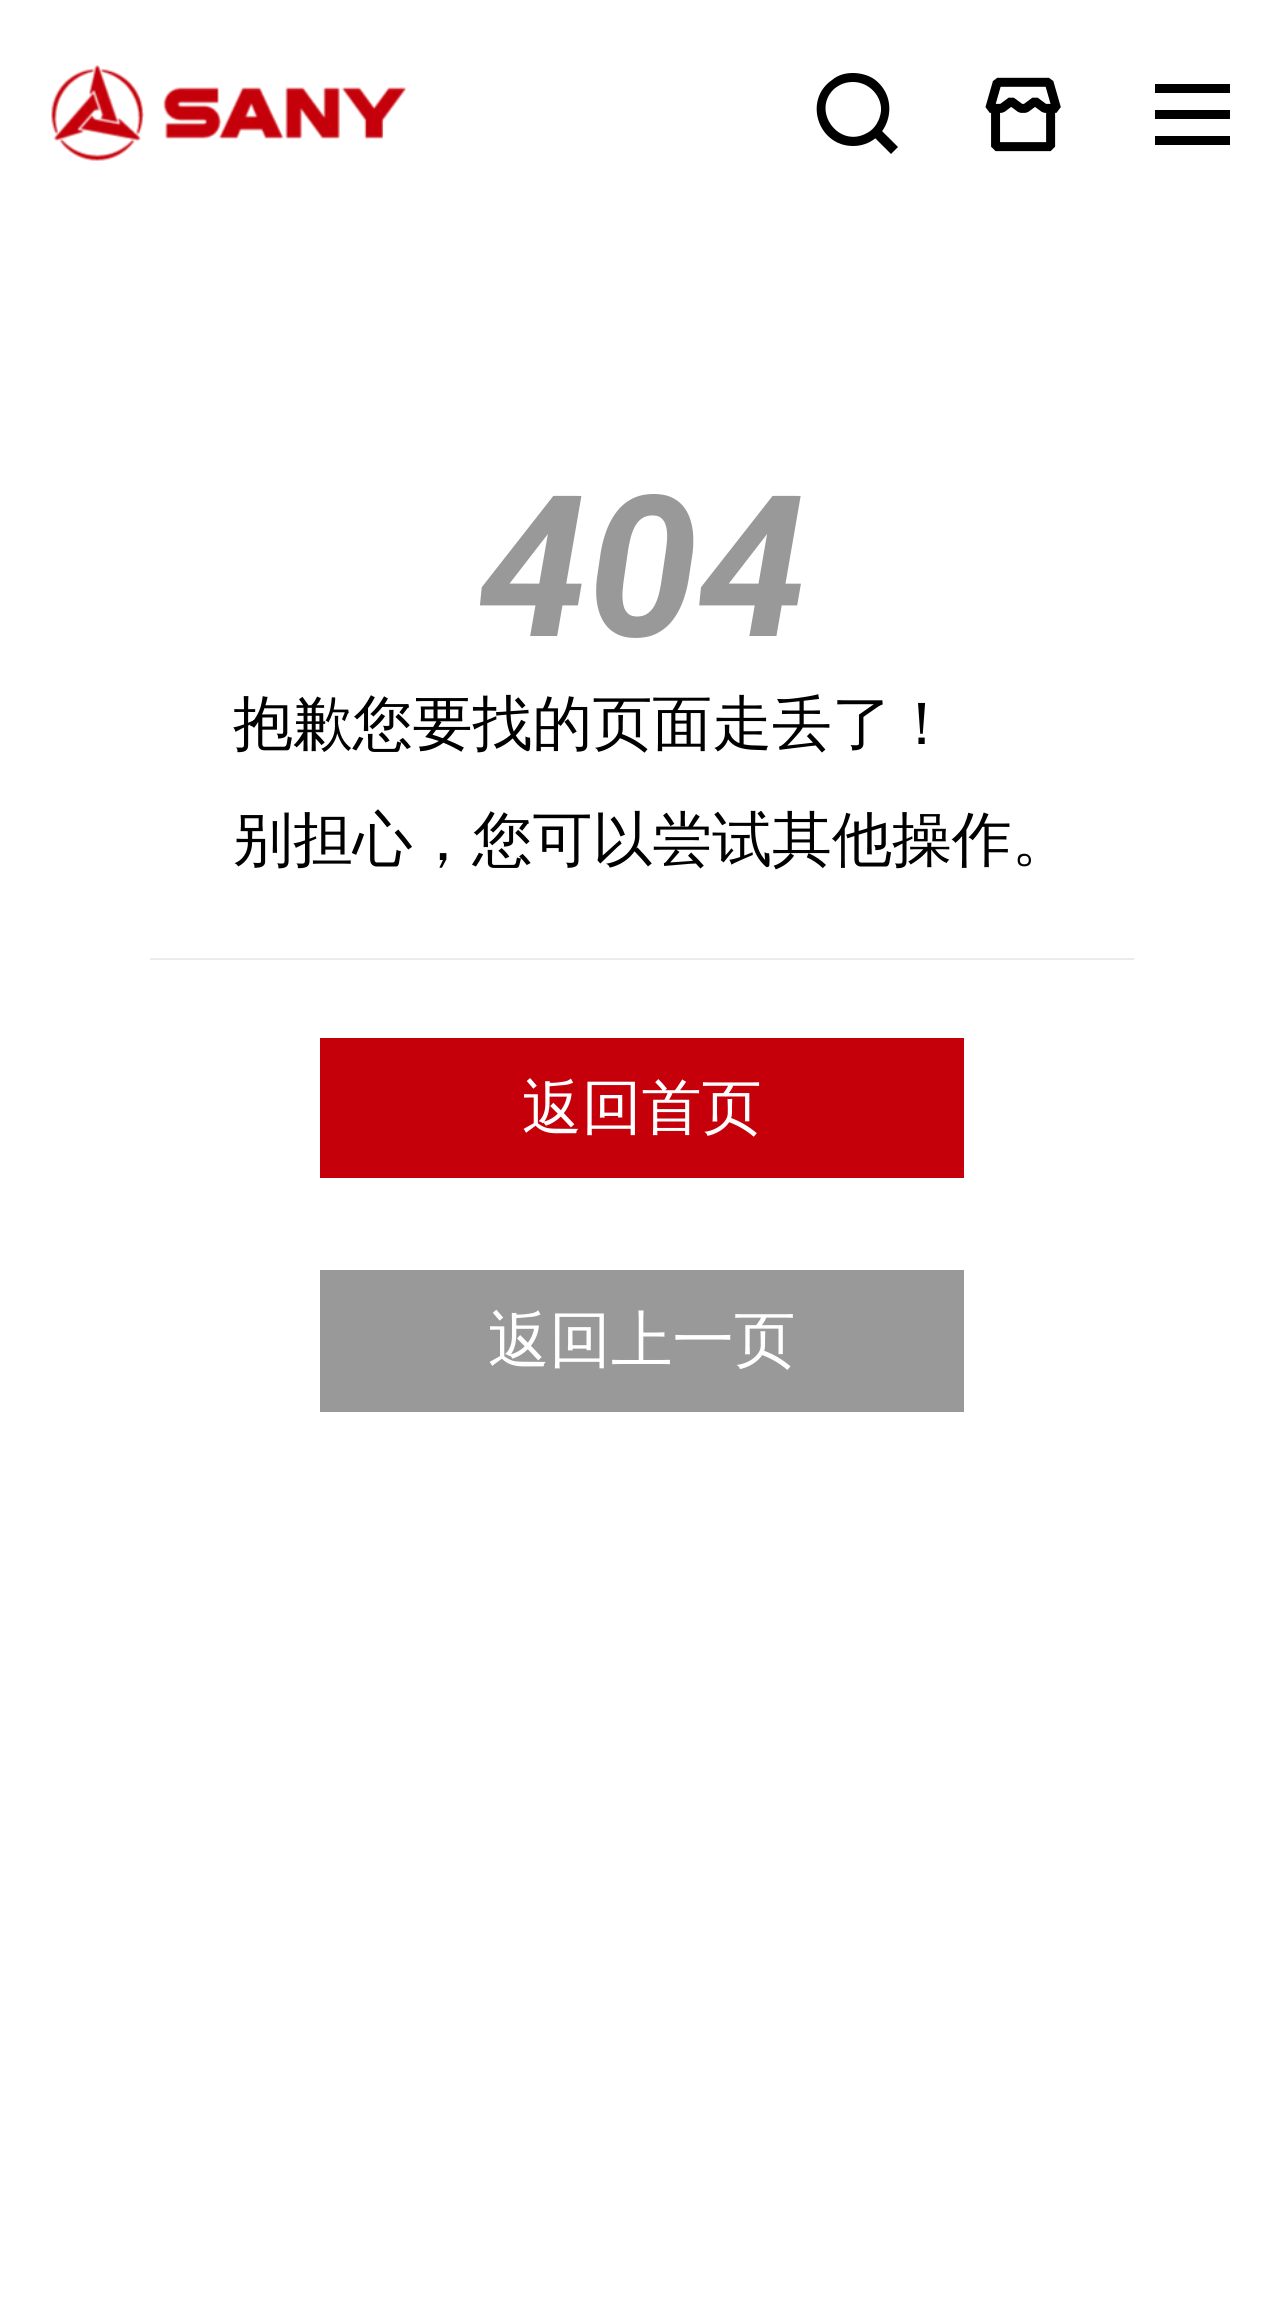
import math
import cairo

surface = cairo.ImageSurface(cairo.Format.RGB24, 1284, 2323)
ctx = cairo.Context(surface)
options = cairo.FontOptions()
options.set_hint_metrics(cairo.HintMetrics.OFF)
options.set_hint_style(cairo.HintStyle.NONE)
ctx.set_font_options(options)
ctx.set_miter_limit(4)


def ink(r, g, b):
    ctx.set_source_rgb(r / 255, g / 255, b / 255)


def write(x, y, s, family, size, color, bold=False, italic=False):
    ctx.select_font_face(family, cairo.FontSlant.ITALIC if italic else cairo.FontSlant.NORMAL, cairo.FontWeight.BOLD if bold else cairo.FontWeight.NORMAL)
    ctx.set_font_size(size)
    ink(*color)
    ctx.move_to(x, y)
    ctx.show_text(s)


def block(x, y, w, h, *color):
    ink(*color)
    ctx.rectangle(x, y, w, h)
    ctx.fill()


def paste(path, x, y, w, h):
    ctx.save()
    ctx.set_source_surface(cairo.ImageSurface.create_from_png(path), x, y)
    ctx.rectangle(x, y, w, h)
    ctx.fill()
    ctx.restore()


s1 = dict(family="Roboto", size=197, color=(153, 153, 153), bold=True, italic=True)
s2 = dict(family="WenQuanYi Zen Hei Medium", size=59.9, color=(0, 0, 0))
s3 = dict(family="WenQuanYi Zen Hei Medium", size=59.9, color=(255, 255, 255))
s4 = dict(family="WenQuanYi Zen Hei Medium", size=61.5, color=(255, 255, 255))

ink(255, 255, 255)
ctx.paint()
paste("pic1.png", 51, 65, 355, 96)
ink(0, 0, 0)
ctx.new_path()
ctx.move_to(853, 146)
ctx.curve_to(818, 146, 803, 100, 832, 80)
ctx.curve_to(838, 75, 845, 73, 853, 73)
ctx.curve_to(860, 73, 868, 75, 874, 79)
ctx.curve_to(903, 100, 888, 146, 853, 146)
ctx.close_path()
ctx.move_to(853, 82)
ctx.curve_to(846, 82, 840, 84, 834, 89)
ctx.curve_to(811, 111, 839, 149, 867, 133)
ctx.curve_to(875, 129, 880, 120, 881, 111)
ctx.curve_to(882, 96, 869, 82, 853, 82)
ctx.close_path()
ctx.move_to(874, 137)
ctx.line_to(881, 130)
ctx.line_to(898, 147)
ctx.line_to(891, 154)
ctx.close_path()
ctx.fill()
paste("pic2.png", 985, 77, 76, 75)
ctx.new_path()
ctx.move_to(1155, 84)
ctx.line_to(1230, 84)
ctx.line_to(1230, 93)
ctx.line_to(1155, 93)
ctx.close_path()
ctx.move_to(1155, 110)
ctx.line_to(1230, 110)
ctx.line_to(1230, 119)
ctx.line_to(1155, 119)
ctx.close_path()
ctx.move_to(1155, 136)
ctx.line_to(1230, 136)
ctx.line_to(1230, 145)
ctx.line_to(1155, 145)
ctx.close_path()
ctx.fill()
write(478, 636, "404", **s1)
write(233, 744, "抱歉您要找的页面走丢了！", **s2)
block(150, 958, 984, 2, 235, 235, 235)
write(233, 860, "别担心，您可以尝试其他操作。", **s2)
block(320, 1038, 644, 140, 198, 0, 11)
write(522, 1128, "返回首页", **s3)
block(320, 1270, 644, 142, 153, 153, 153)
write(488, 1361, "返回上一页", **s4)
surface.write_to_png("screenshot.png")
